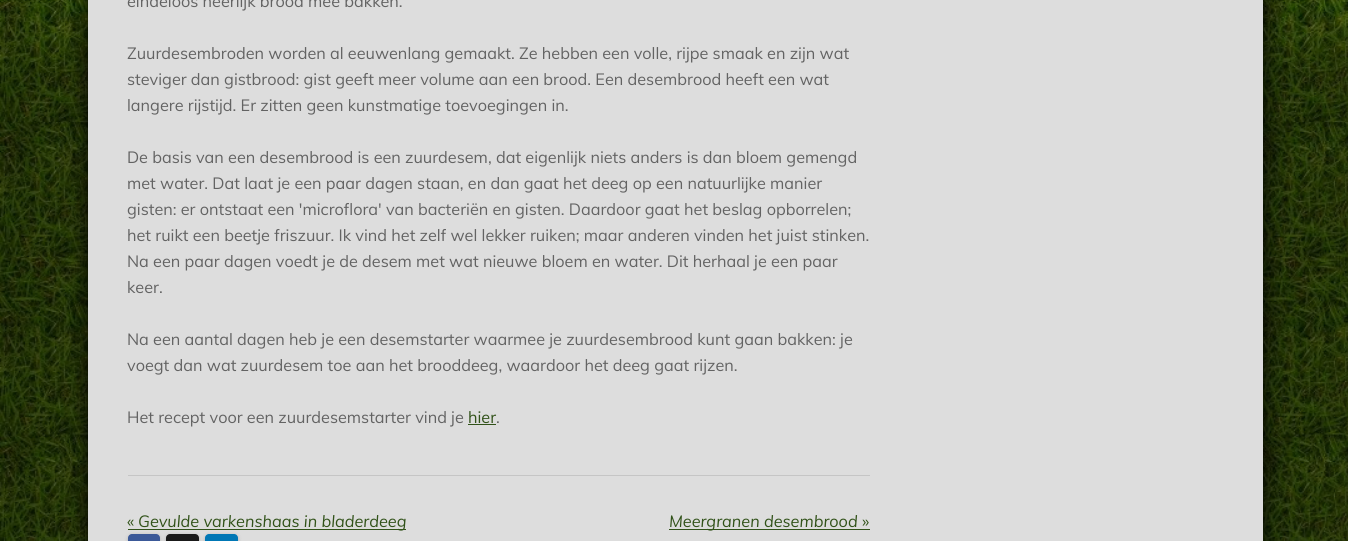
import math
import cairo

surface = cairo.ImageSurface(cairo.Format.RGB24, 1348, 541)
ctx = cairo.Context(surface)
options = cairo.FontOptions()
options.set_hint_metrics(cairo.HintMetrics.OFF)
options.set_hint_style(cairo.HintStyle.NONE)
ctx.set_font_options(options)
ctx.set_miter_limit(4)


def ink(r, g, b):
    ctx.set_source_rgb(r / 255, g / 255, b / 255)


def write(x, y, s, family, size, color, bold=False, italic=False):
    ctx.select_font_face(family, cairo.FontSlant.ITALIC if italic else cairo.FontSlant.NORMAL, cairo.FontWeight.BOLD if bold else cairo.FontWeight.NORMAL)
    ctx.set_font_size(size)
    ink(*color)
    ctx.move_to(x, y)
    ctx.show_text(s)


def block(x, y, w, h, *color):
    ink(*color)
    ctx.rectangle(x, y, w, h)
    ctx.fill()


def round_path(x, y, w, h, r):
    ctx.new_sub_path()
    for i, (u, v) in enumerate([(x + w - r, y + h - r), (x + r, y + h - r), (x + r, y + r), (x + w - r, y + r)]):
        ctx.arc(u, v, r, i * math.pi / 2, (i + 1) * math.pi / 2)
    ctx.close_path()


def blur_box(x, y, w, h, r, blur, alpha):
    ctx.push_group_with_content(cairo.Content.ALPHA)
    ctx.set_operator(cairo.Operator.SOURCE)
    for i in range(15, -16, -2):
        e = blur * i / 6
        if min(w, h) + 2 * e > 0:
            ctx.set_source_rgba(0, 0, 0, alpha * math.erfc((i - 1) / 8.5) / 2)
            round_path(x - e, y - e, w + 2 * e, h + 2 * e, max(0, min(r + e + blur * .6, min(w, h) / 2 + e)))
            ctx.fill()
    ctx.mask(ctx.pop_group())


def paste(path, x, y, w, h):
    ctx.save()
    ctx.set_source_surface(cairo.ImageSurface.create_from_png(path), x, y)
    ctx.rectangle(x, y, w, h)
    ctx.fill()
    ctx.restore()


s1 = dict(family="Muli", size=16.25, color=(99, 99, 99))
s2 = dict(family="Muli", size=16.25, color=(49, 82, 25))
s3 = dict(family="Muli", size=16.25, color=(49, 82, 25), italic=True)

ink(255, 255, 255)
ctx.paint()
paste("pic1.png", 0, 0, 1348, 541)
ctx.set_source_rgba(0, 0, 0, 0.6)
ctx.rectangle(0, 73, 1348, 468)
ctx.fill()
ink(0, 0, 0)
blur_box(88, -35, 1175, 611, 6, 9.5, 1)
block(88, 0, 1175, 541, 221, 221, 221)
write(127, 7, "eindeloos heerlijk brood mee bakken.", **s1)
write(127, 59, "Zuurdesembroden worden al eeuwenlang gemaakt. Ze hebben een volle, rijpe smaak en zijn wat", **s1)
write(127, 85, "steviger dan gistbrood: gist geeft meer volume aan een brood. Een desembrood heeft een wat", **s1)
write(127, 111, "langere rijstijd. Er zitten geen kunstmatige toevoegingen in.", **s1)
write(127, 163, "De basis van een desembrood is een zuurdesem, dat eigenlijk niets anders is dan bloem gemengd", **s1)
write(127, 189, "met water. Dat laat je een paar dagen staan, en dan gaat het deeg op een natuurlijke manier", **s1)
write(127, 215, "gisten: er ontstaat een 'microflora' van bacteriën en gisten. Daardoor gaat het beslag opborrelen;", **s1)
write(127, 241, "het ruikt een beetje friszuur. Ik vind het zelf wel lekker ruiken; maar anderen vinden het juist stinken.", **s1)
write(127, 267, "Na een paar dagen voedt je de desem met wat nieuwe bloem en water. Dit herhaal je een paar", **s1)
write(127, 293, "keer.", **s1)
write(127, 345, "Na een aantal dagen heb je een desemstarter waarmee je zuurdesembrood kunt gaan bakken: je", **s1)
write(127, 371, "voegt dan wat zuurdesem toe aan het brooddeeg, waardoor het deeg gaat rijzen.", **s1)
write(127, 423, "Het recept voor een zuurdesemstarter vind je", **s1)
write(468, 423, "hier", **s2)
write(496, 423, ".", **s1)
block(468, 424, 28, 1, 49, 82, 25)
block(128, 475, 742, 1, 197, 197, 197)
write(127, 527, "«", **s2)
block(128, 529, 278, 1, 49, 82, 25)
write(138, 527, "Gevulde varkenshaas in bladerdeeg", **s3)
block(669, 529, 201, 1, 49, 82, 25)
write(669, 527, "Meergranen desembrood", **s3)
write(862, 527, "»", **s2)
ink(0, 0, 0)
blur_box(128, 535, 32, 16, 4, 2, 0.2)
ink(59, 89, 152)
round_path(128, 534, 32, 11, 4)
ctx.fill()
ink(0, 0, 0)
blur_box(166, 535, 33, 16, 4, 2, 0.2)
ink(26, 26, 26)
round_path(166, 534, 33, 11, 4)
ctx.fill()
ink(0, 0, 0)
blur_box(205, 535, 33, 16, 4, 2, 0.2)
ink(0, 119, 181)
round_path(205, 534, 33, 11, 4)
ctx.fill()
surface.write_to_png("screenshot.png")
